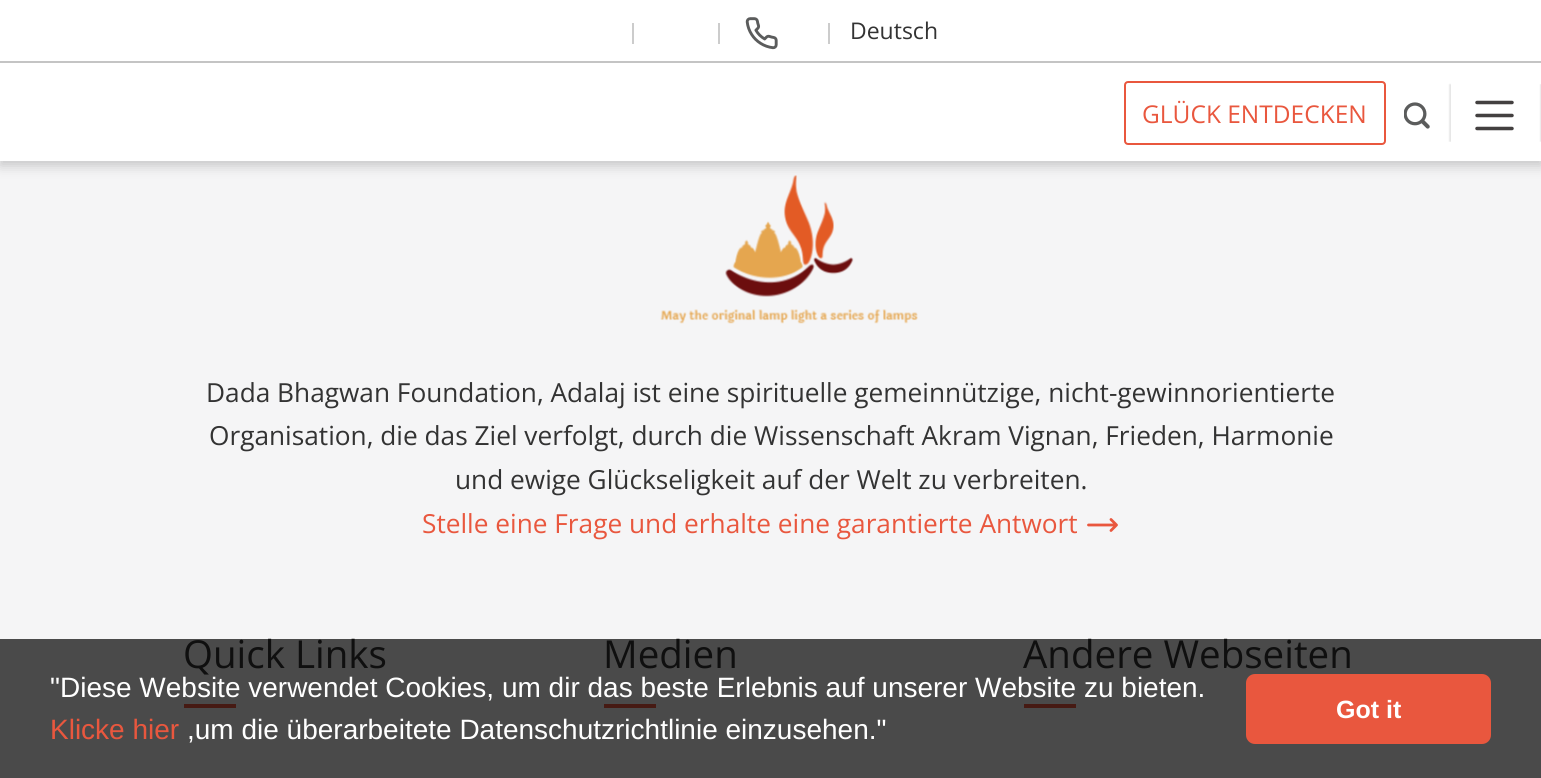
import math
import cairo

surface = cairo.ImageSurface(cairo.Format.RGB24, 1541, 778)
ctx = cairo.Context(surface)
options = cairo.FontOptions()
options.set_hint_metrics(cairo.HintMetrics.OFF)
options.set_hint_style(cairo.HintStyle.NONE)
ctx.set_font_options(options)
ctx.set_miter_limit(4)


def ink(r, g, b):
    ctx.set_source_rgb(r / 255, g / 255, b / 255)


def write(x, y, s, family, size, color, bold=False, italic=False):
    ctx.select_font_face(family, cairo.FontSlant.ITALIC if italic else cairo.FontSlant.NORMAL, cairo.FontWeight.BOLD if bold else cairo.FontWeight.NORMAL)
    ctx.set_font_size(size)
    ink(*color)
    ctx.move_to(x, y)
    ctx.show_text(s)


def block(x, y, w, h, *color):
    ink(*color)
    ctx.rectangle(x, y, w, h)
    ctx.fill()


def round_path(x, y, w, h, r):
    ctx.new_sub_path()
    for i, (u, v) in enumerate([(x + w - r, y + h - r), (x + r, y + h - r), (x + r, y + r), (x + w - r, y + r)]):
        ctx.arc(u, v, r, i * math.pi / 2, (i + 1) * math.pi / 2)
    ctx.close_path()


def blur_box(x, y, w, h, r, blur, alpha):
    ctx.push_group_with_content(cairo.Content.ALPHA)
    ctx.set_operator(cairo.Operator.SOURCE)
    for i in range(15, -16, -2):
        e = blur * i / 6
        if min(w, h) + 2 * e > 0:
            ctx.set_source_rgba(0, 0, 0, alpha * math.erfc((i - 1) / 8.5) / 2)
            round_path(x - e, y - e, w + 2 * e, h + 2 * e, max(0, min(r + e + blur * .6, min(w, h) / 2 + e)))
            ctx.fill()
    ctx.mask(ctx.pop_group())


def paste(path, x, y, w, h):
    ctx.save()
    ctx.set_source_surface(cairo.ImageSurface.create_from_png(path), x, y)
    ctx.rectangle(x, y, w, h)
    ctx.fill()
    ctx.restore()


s1 = dict(family="Open Sans", size=23, color=(51, 51, 51))
s2 = dict(family="Open Sans", size=24.5, color=(233, 87, 62))
s3 = dict(family="Open Sans", size=26.25, color=(51, 51, 51))
s4 = dict(family="Open Sans", size=26.25, color=(233, 87, 62))
s5 = dict(family="Open Sans", size=38.5, color=(15, 15, 15))
s6 = dict(family="Liberation Sans", size=28, color=(255, 255, 255))
s7 = dict(family="Liberation Sans", size=28, color=(233, 87, 62))
s8 = dict(family="Liberation Sans", size=25, color=(255, 255, 255), bold=True)

ink(245, 245, 246)
ctx.paint()
paste("pic5.png", 660, 175, 258, 149)
ink(0, 0, 0)
blur_box(0, 5, 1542, 161, 0, 6, 0.19)
block(0, 0, 1541, 61, 255, 255, 255)
block(632, 23, 2, 21, 204, 204, 204)
block(718, 23, 2, 21, 204, 204, 204)
paste("pic1.png", 745, 17, 33, 33)
block(828, 23, 2, 21, 204, 204, 204)
write(850, 39, "Deutsch", **s1)
block(0, 63, 1541, 98, 255, 255, 255)
block(0, 61, 1541, 2, 196, 196, 196)
round_path(1125, 82, 260, 62, 3)
ink(233, 87, 62)
ctx.stroke()
write(1142, 123, "GLÜCK ENTDECKEN", **s2)
paste("pic2.png", 1448, 83, 3, 59)
paste("pic3.png", 1404, 102, 26, 27)
paste("pic4.png", 1539, 84, 2, 58)
ctx.new_path()
ctx.move_to(1477, 115.5)
ctx.line_to(1512, 115.5)
ctx.move_to(1477, 102.5)
ctx.line_to(1512, 102.5)
ctx.move_to(1477, 128.5)
ctx.line_to(1512, 128.5)
ink(67, 64, 64)
ctx.set_line_width(3.5)
ctx.set_line_cap(cairo.LineCap.ROUND)
ctx.set_line_join(cairo.LineJoin.ROUND)
ctx.stroke()
block(0, 639, 1541, 139, 74, 74, 74)
write(206, 402, "Dada Bhagwan Foundation, Adalaj ist eine spirituelle gemeinnützige, nicht-gewinnorientierte", **s3)
write(209, 445, "Organisation, die das Ziel verfolgt, durch die Wissenschaft Akram Vignan, Frieden, Harmonie", **s3)
write(455, 489, "und ewige Glückseligkeit auf der Welt zu verbreiten.", **s3)
write(422, 533, "Stelle eine Frage und erhalte eine garantierte Antwort", **s4)
ctx.new_path()
ctx.move_to(1111, 519.5)
ctx.line_to(1116.5, 525)
ctx.move_to(1116.5, 525)
ctx.line_to(1111, 530.5)
ctx.move_to(1116.5, 525)
ctx.line_to(1088.5, 525)
ctx.set_line_width(2.8)
ctx.stroke()
write(183, 668, "Quick Links", **s5)
block(184, 704, 52, 4, 70, 26, 19)
write(603, 668, "Medien", **s5)
block(604, 704, 52, 4, 70, 26, 19)
write(1023, 668, "Andere Webseiten", **s5)
block(1024, 704, 52, 4, 70, 26, 19)
write(50, 697, "\"Diese Website verwendet Cookies, um dir das beste Erlebnis auf unserer Website zu bieten.", **s6)
write(50, 739, "Klicke hier", **s7)
write(187, 739, ",um die überarbeitete Datenschutzrichtlinie einzusehen.\"", **s6)
ink(233, 87, 62)
round_path(1246, 674, 245, 70, 9)
ctx.fill()
write(1336, 718, "Got it", **s8)
surface.write_to_png("screenshot.png")
